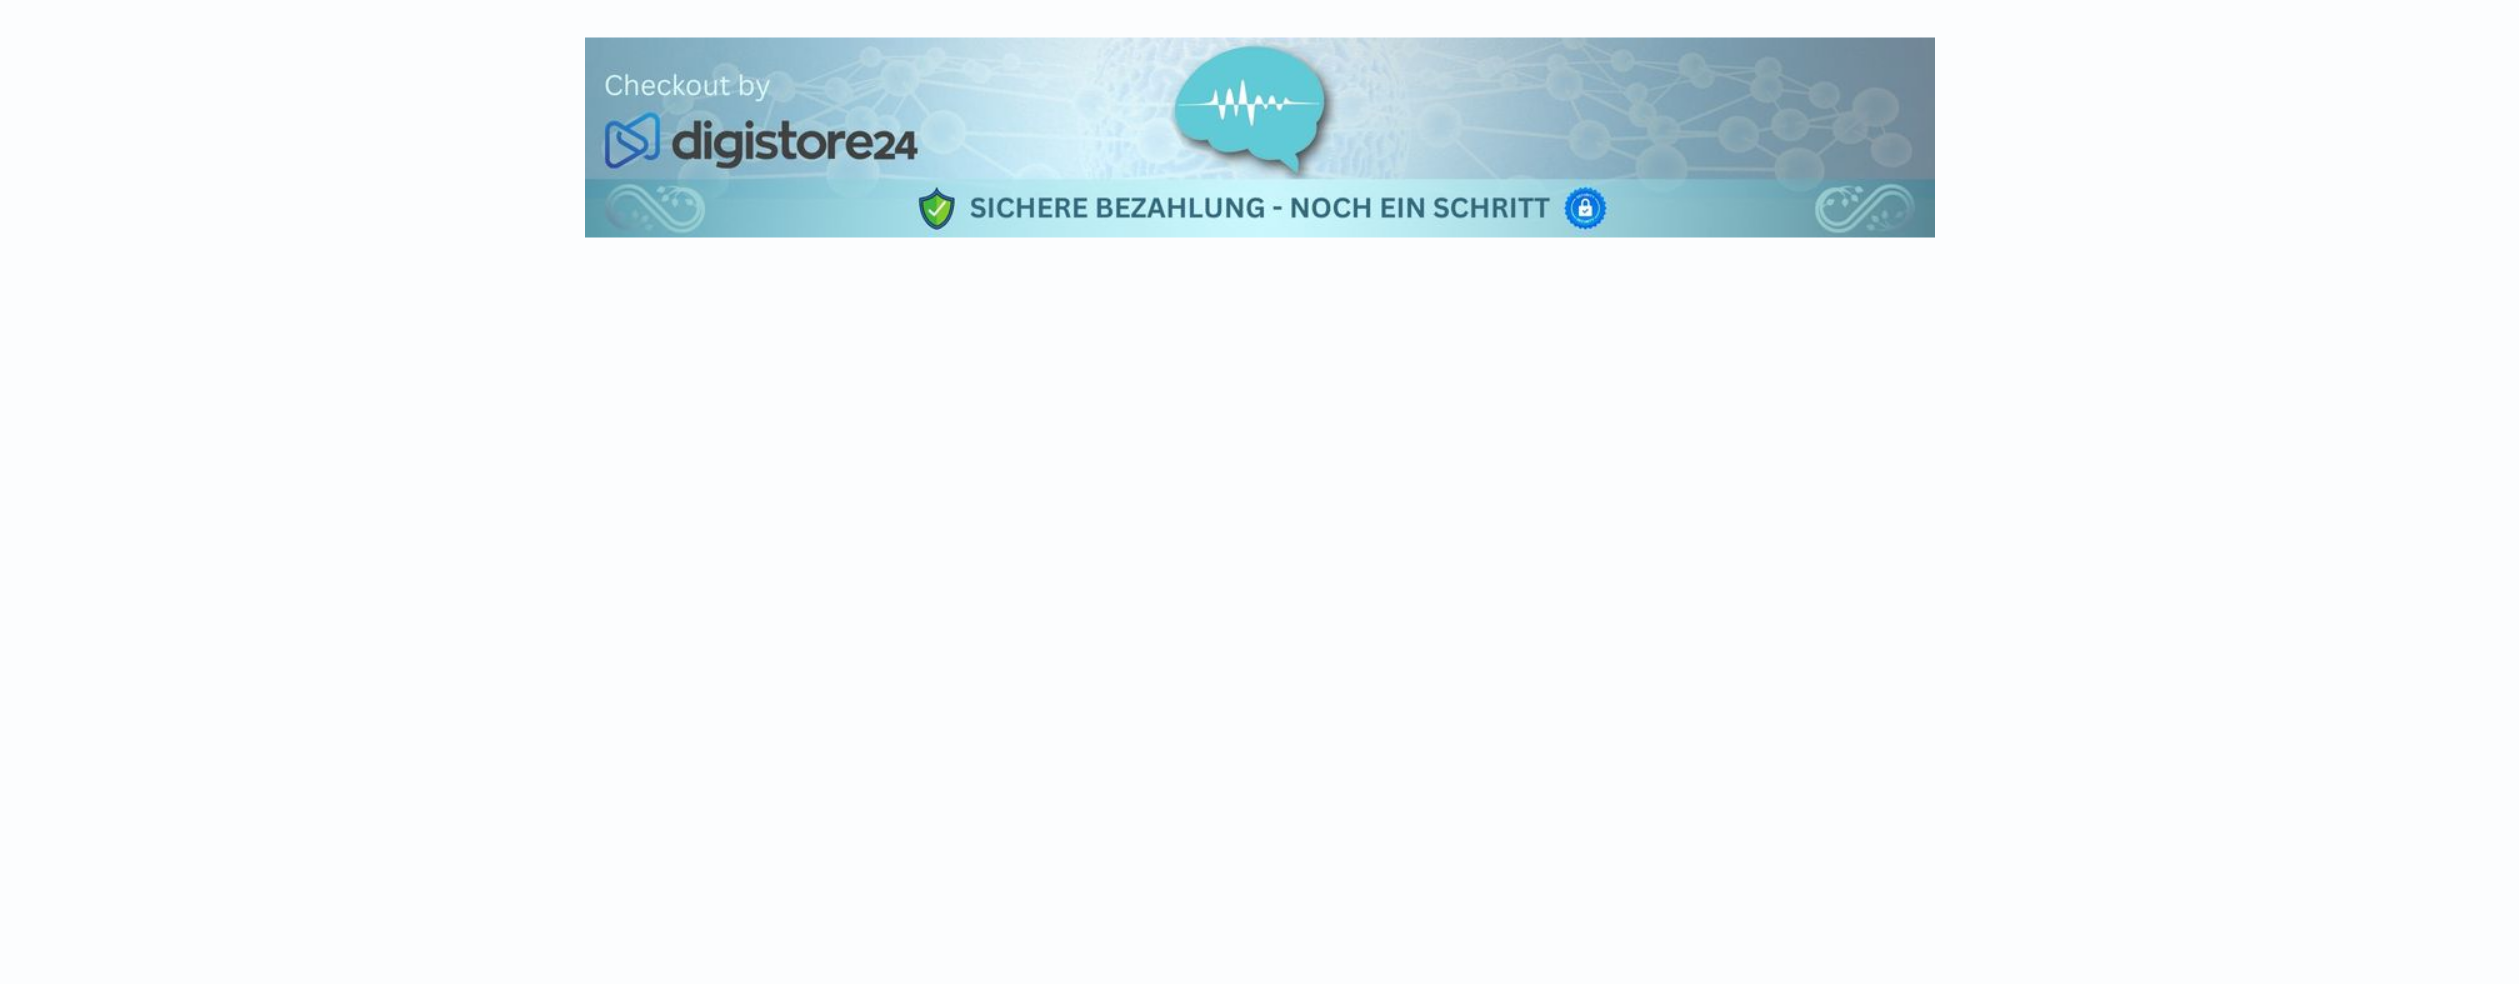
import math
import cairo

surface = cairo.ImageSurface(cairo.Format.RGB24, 2519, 984)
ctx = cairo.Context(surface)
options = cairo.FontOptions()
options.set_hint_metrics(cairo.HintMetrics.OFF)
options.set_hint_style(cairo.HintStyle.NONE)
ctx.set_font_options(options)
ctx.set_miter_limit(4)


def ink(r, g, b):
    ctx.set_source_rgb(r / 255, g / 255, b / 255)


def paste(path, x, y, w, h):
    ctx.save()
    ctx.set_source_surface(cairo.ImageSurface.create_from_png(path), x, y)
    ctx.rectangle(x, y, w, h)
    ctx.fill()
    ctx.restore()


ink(252, 253, 254)
ctx.paint()
paste("pic1.png", 585, 37, 1350, 201)
surface.write_to_png("screenshot.png")
